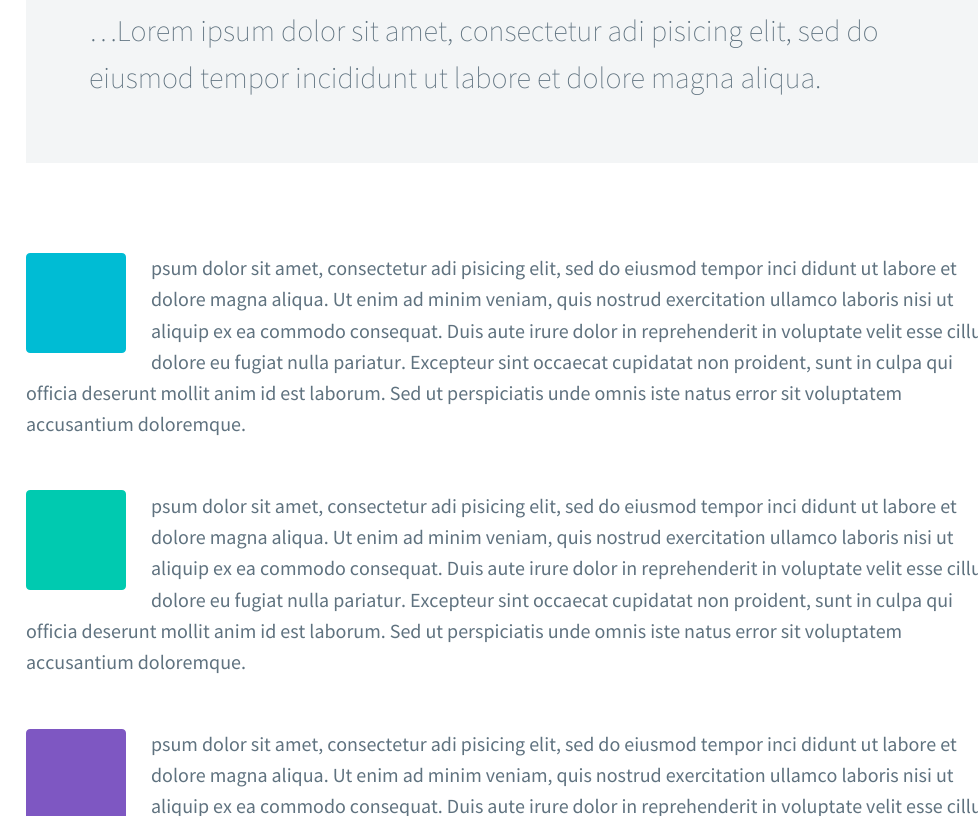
import math
import cairo

surface = cairo.ImageSurface(cairo.Format.RGB24, 978, 816)
ctx = cairo.Context(surface)
options = cairo.FontOptions()
options.set_hint_metrics(cairo.HintMetrics.OFF)
options.set_hint_style(cairo.HintStyle.NONE)
ctx.set_font_options(options)
ctx.set_miter_limit(4)


def ink(r, g, b):
    ctx.set_source_rgb(r / 255, g / 255, b / 255)


def write(x, y, s, family, size, color, bold=False, italic=False):
    ctx.select_font_face(family, cairo.FontSlant.ITALIC if italic else cairo.FontSlant.NORMAL, cairo.FontWeight.BOLD if bold else cairo.FontWeight.NORMAL)
    ctx.set_font_size(size)
    ink(*color)
    ctx.move_to(x, y)
    ctx.show_text(s)


def block(x, y, w, h, *color):
    ink(*color)
    ctx.rectangle(x, y, w, h)
    ctx.fill()


def round_path(x, y, w, h, r):
    ctx.new_sub_path()
    for i, (u, v) in enumerate([(x + w - r, y + h - r), (x + r, y + h - r), (x + r, y + r), (x + w - r, y + r)]):
        ctx.arc(u, v, r, i * math.pi / 2, (i + 1) * math.pi / 2)
    ctx.close_path()


s1 = dict(family="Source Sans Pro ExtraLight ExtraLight", size=30, color=(95, 114, 127))
s2 = dict(family="Source Sans Pro", size=20, color=(95, 114, 127))

ink(255, 255, 255)
ctx.paint()
block(26, 0, 952, 163, 243, 245, 246)
write(89, 41, "…Lorem ipsum dolor sit amet, consectetur adi pisicing elit, sed do", **s1)
write(89, 88, "eiusmod tempor incididunt ut labore et dolore magna aliqua.", **s1)
round_path(28.5, 255.5, 95, 95, 1.5)
ink(0, 188, 212)
ctx.set_line_width(5)
ctx.stroke()
block(31, 258, 90, 90, 0, 188, 212)
write(151, 275, "psum dolor sit amet, consectetur adi pisicing elit, sed do eiusmod tempor inci didunt ut labore et", **s2)
write(151, 306, "dolore magna aliqua. Ut enim ad minim veniam, quis nostrud exercitation ullamco laboris nisi ut", **s2)
write(151, 338, "aliquip ex ea commodo consequat. Duis aute irure dolor in reprehenderit in voluptate velit esse cillu", **s2)
write(151, 369, "dolore eu fugiat nulla pariatur. Excepteur sint occaecat cupidatat non proident, sunt in culpa qui", **s2)
write(26, 400, "officia deserunt mollit anim id est laborum. Sed ut perspiciatis unde omnis iste natus error sit voluptatem", **s2)
write(26, 431, "accusantium doloremque.", **s2)
round_path(28.5, 492.5, 95, 95, 1.5)
ink(0, 202, 176)
ctx.stroke()
block(31, 495, 90, 90, 0, 202, 176)
write(151, 513, "psum dolor sit amet, consectetur adi pisicing elit, sed do eiusmod tempor inci didunt ut labore et", **s2)
write(151, 544, "dolore magna aliqua. Ut enim ad minim veniam, quis nostrud exercitation ullamco laboris nisi ut", **s2)
write(151, 575, "aliquip ex ea commodo consequat. Duis aute irure dolor in reprehenderit in voluptate velit esse cillu", **s2)
write(151, 607, "dolore eu fugiat nulla pariatur. Excepteur sint occaecat cupidatat non proident, sunt in culpa qui", **s2)
write(26, 638, "officia deserunt mollit anim id est laborum. Sed ut perspiciatis unde omnis iste natus error sit voluptatem", **s2)
write(26, 669, "accusantium doloremque.", **s2)
round_path(28.5, 731.5, 95, 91, 1.5)
ink(126, 87, 194)
ctx.stroke()
block(31, 734, 90, 82, 126, 87, 194)
write(151, 751, "psum dolor sit amet, consectetur adi pisicing elit, sed do eiusmod tempor inci didunt ut labore et", **s2)
write(151, 782, "dolore magna aliqua. Ut enim ad minim veniam, quis nostrud exercitation ullamco laboris nisi ut", **s2)
write(151, 813, "aliquip ex ea commodo consequat. Duis aute irure dolor in reprehenderit in voluptate velit esse cillu", **s2)
surface.write_to_png("screenshot.png")
